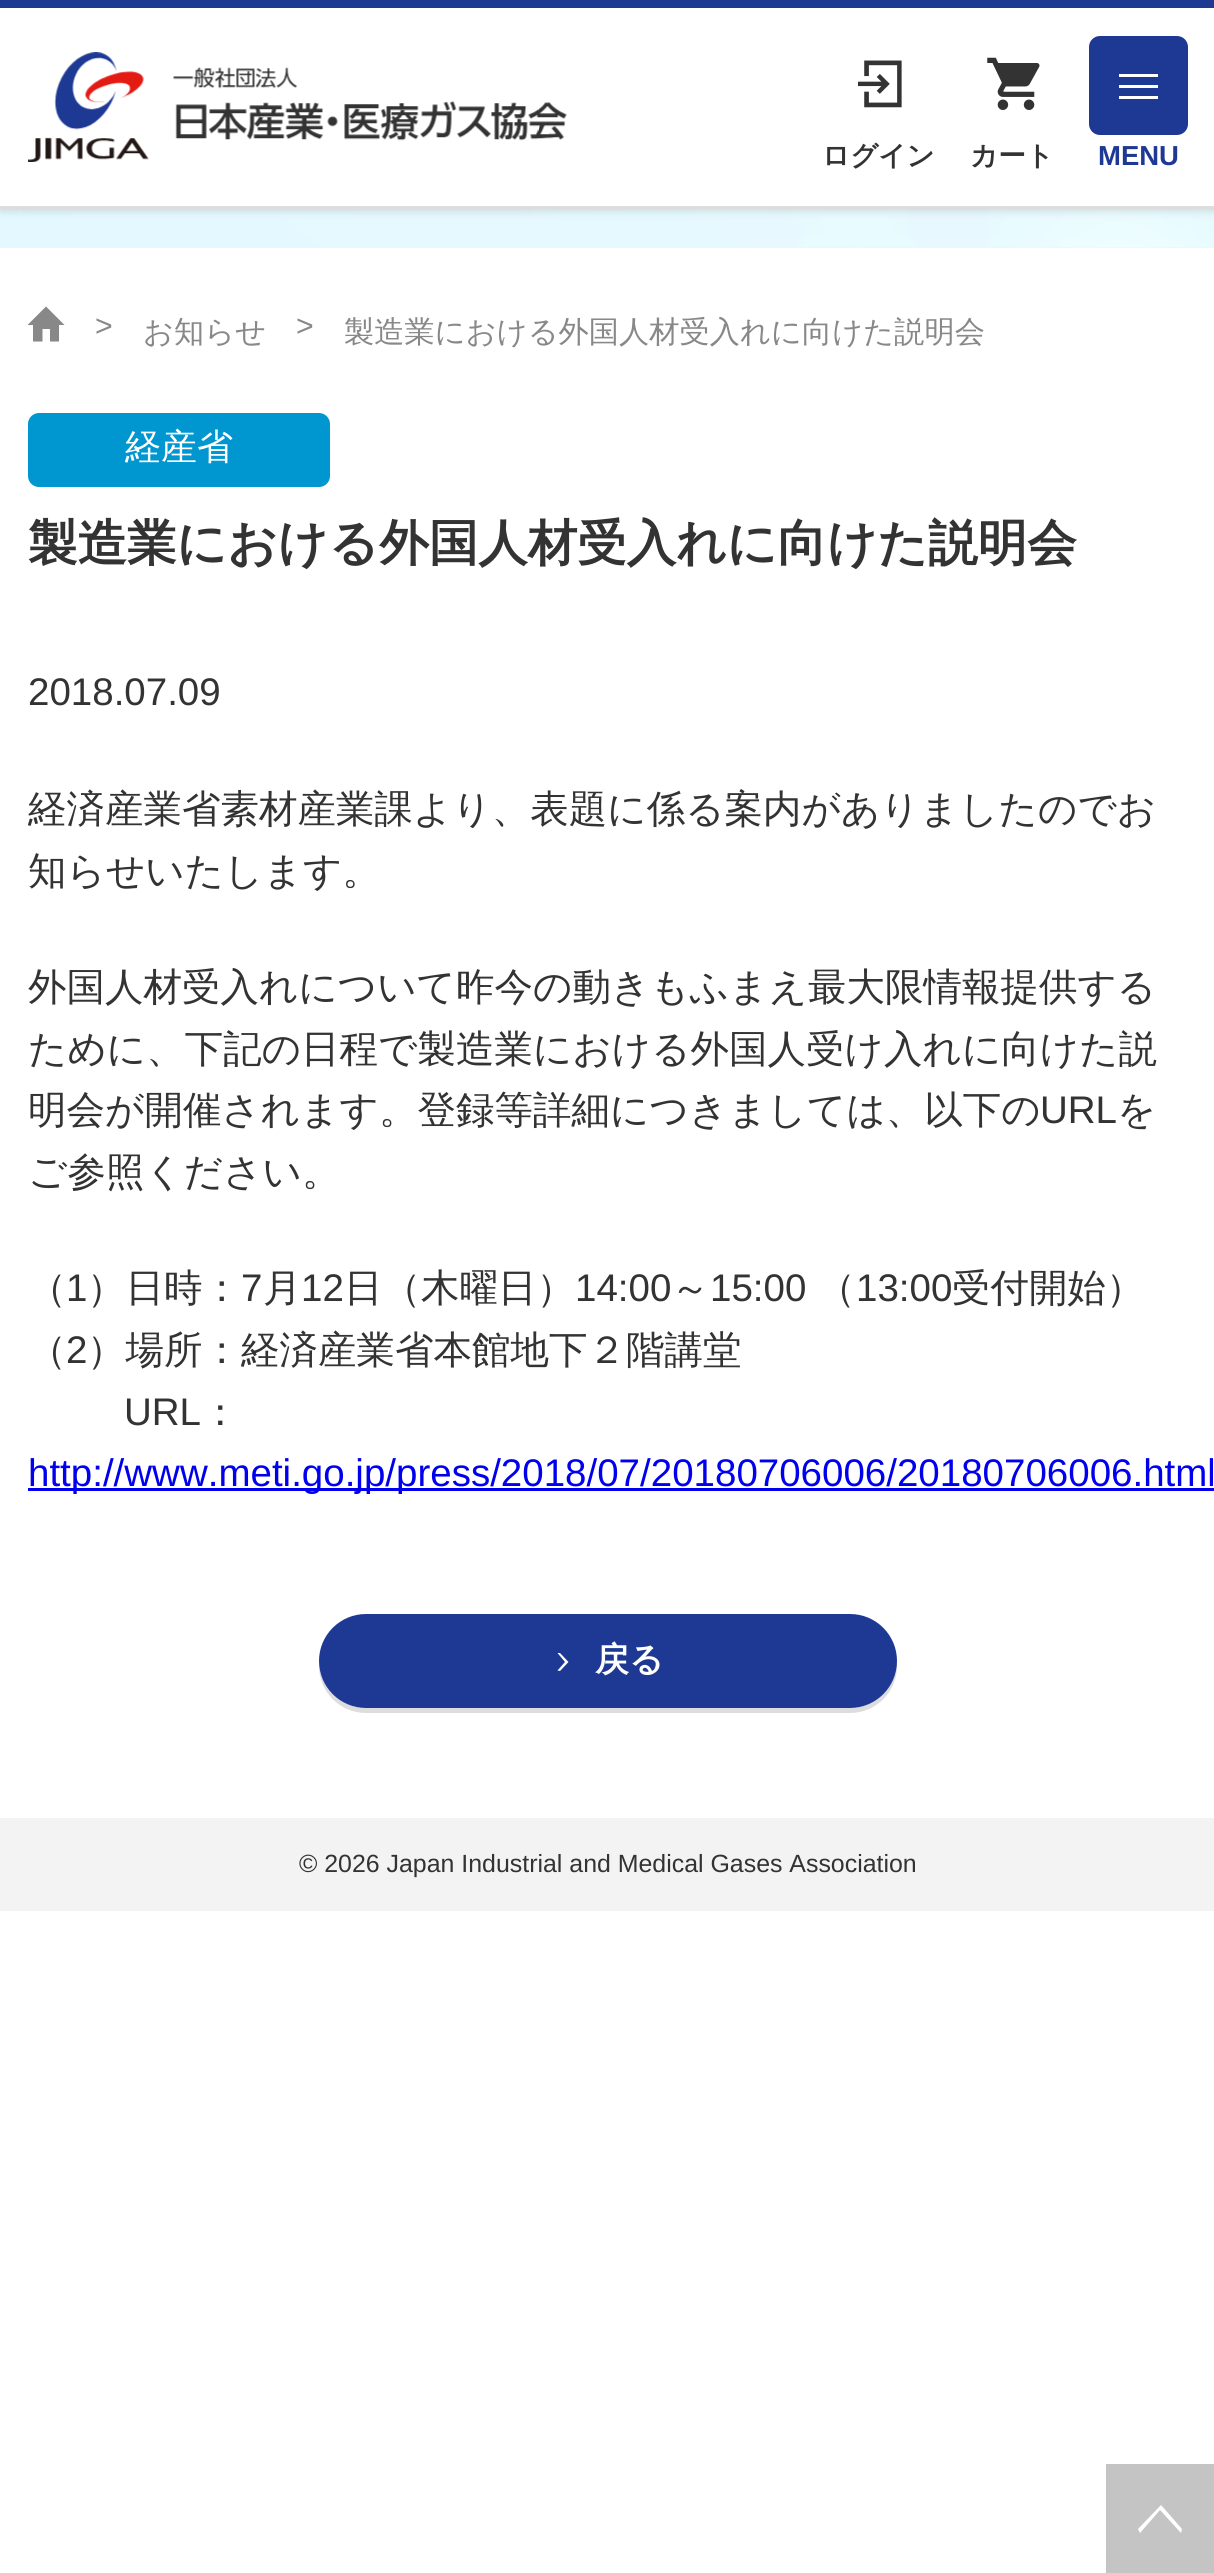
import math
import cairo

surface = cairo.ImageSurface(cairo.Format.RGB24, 1214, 2573)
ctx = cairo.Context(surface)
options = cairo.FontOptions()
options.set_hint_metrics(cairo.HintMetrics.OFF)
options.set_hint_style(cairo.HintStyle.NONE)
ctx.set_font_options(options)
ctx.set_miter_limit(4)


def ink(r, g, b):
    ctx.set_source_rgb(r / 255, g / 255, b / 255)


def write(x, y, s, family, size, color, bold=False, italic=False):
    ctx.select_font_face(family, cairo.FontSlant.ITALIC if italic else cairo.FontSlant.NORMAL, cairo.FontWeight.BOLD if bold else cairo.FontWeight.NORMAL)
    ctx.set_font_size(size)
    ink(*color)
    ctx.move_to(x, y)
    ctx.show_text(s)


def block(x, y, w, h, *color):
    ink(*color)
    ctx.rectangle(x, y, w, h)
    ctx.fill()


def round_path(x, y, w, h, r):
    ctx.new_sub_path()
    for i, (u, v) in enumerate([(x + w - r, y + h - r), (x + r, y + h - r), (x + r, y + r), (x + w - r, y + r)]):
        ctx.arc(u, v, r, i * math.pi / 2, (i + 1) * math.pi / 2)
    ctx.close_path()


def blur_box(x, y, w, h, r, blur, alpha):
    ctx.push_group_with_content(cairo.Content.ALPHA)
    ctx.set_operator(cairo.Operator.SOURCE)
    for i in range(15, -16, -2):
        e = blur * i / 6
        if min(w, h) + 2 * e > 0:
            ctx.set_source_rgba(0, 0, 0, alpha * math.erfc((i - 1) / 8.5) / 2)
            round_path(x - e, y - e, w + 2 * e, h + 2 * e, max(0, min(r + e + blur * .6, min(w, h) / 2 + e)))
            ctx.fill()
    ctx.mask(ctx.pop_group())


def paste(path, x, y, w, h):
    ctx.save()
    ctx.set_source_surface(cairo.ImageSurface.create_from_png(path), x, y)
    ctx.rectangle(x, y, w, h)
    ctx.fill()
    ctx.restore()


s1 = dict(family="WenQuanYi Zen Hei", size=27.5, color=(51, 51, 51), bold=True)
s2 = dict(family="Liberation Sans", size=27.5, color=(29, 57, 148), bold=True)
s3 = dict(family="Liberation Sans", size=30.25, color=(136, 136, 136))
s4 = dict(family="WenQuanYi Zen Hei Medium", size=30.25, color=(136, 136, 136))
s5 = dict(family="WenQuanYi Zen Hei Medium", size=36, color=(255, 255, 255))
s6 = dict(family="WenQuanYi Zen Hei", size=49.5, color=(51, 51, 51), bold=True)
s7 = dict(family="Liberation Sans", size=38.5, color=(51, 51, 51))
s8 = dict(family="WenQuanYi Zen Hei Medium", size=38.5, color=(51, 51, 51))
s9 = dict(family="Liberation Sans", size=38.5, color=(0, 0, 238))
s10 = dict(family="WenQuanYi Zen Hei", size=34, color=(255, 255, 255), bold=True)
s11 = dict(family="Liberation Sans", size=24.9, color=(51, 51, 51))

ink(255, 255, 255)
ctx.paint()
block(0, 247, 1214, 1, 227, 249, 255)
paste("pic4.png", 0, 209, 1214, 39)
ink(0, 0, 0)
blur_box(0, 0, 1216, 209, 0, 5.5, 0.2)
block(0, 8, 1214, 198, 255, 255, 255)
block(0, 0, 1214, 8, 29, 57, 148)
block(0, 206, 1214, 3, 221, 221, 221)
paste("pic1.png", 28, 52, 539, 110)
paste("pic2.png", 858, 60, 44, 48)
write(822, 165, "ログイン", **s1)
paste("pic3.png", 987, 57, 53, 53)
write(970, 165, "カート", **s1)
ink(29, 57, 148)
round_path(1089, 36, 99, 99, 11)
ctx.fill()
block(1119, 74, 39, 3, 255, 255, 255)
block(1119, 85, 39, 3, 255, 255, 255)
block(1119, 96, 39, 3, 255, 255, 255)
write(1098, 165, "MENU", **s2)
ink(136, 136, 136)
ctx.new_path()
ctx.move_to(42.5, 341.5)
ctx.line_to(42.5, 329)
ctx.line_to(50, 329)
ctx.line_to(50, 341.5)
ctx.line_to(59, 341.5)
ctx.line_to(59, 325)
ctx.line_to(64.5, 325)
ctx.line_to(46, 306.5)
ctx.line_to(27.5, 325)
ctx.line_to(33, 325)
ctx.line_to(33, 341.5)
ctx.close_path()
ctx.fill()
write(95, 336, ">", **s3)
write(143, 342, "お知らせ", **s4)
write(296, 336, ">", **s3)
write(344, 342, "製造業における外国人材受入れに向けた説明会", **s4)
ink(0, 151, 208)
round_path(28, 413, 302, 74, 11)
ctx.fill()
write(125, 459, "経産省", **s5)
write(28, 560, "製造業における外国人材受入れに向けた説明会", **s6)
write(28, 705, "2018.07.09", **s7)
write(28, 822, "経済産業省素材産業課より、表題に係る案内がありましたのでお", **s8)
write(28, 884, "知らせいたします。", **s8)
write(28, 1000, "外国人材受入れについて昨今の動きもふまえ最大限情報提供する", **s8)
write(28, 1062, "ために、下記の日程で製造業における外国人受け入れに向けた説", **s8)
write(28, 1123, "明会が開催されます。登録等詳細につきましては、以下の", **s8)
write(1040, 1123, "URL", **s7)
write(1117, 1123, "を", **s8)
write(28, 1185, "ご参照ください。", **s8)
write(28, 1301, "（", **s8)
write(66, 1301, "1", **s7)
write(87, 1301, "）日時：", **s8)
write(241, 1301, "7", **s7)
write(263, 1301, "月", **s8)
write(301, 1301, "12", **s7)
write(344, 1301, "日（木曜日）", **s8)
write(575, 1301, "14:00", **s7)
write(671, 1301, "～", **s8)
write(710, 1301, "15:00", **s7)
write(817, 1301, "（", **s8)
write(856, 1301, "13:00", **s7)
write(952, 1301, "受付開始）", **s8)
write(28, 1363, "（", **s8)
write(66, 1363, "2", **s7)
write(87, 1363, "）場所：経済産業省本館地下２階講堂", **s8)
write(124, 1425, "URL", **s7)
write(201, 1425, "：", **s8)
block(28, 1488, 1186, 3, 0, 0, 238)
write(28, 1486, "http://www.meti.go.jp/press/2018/07/20180706006/20180706006.html", **s9)
ink(221, 221, 221)
ctx.new_path()
ctx.move_to(319, 1664)
ctx.line_to(319, 1666)
ctx.curve_to(319, 1692, 340, 1713, 366, 1713)
ctx.line_to(850, 1713)
ctx.curve_to(876, 1713, 897, 1692, 897, 1666)
ctx.line_to(896, 1659)
ctx.line_to(896, 1661)
ctx.curve_to(896, 1687, 876, 1708, 850, 1708)
ctx.line_to(366, 1708)
ctx.curve_to(341, 1708, 321, 1688, 319, 1664)
ctx.close_path()
ctx.fill()
ink(29, 57, 148)
round_path(319, 1614, 578, 94, 47)
ctx.fill()
ink(255, 255, 255)
ctx.new_path()
ctx.move_to(568.5, 1662)
ctx.line_to(560, 1671)
ctx.line_to(557.5, 1670.5)
ctx.line_to(565, 1662)
ctx.line_to(557.5, 1653)
ctx.line_to(560, 1653)
ctx.close_path()
ctx.fill()
write(595, 1671, "戻る", **s10)
block(0, 1818, 1214, 93, 243, 243, 243)
write(299, 1872, "© 2026 Japan Industrial and Medical Gases Association", **s11)
block(1106, 2464, 108, 109, 196, 196, 196)
ink(255, 255, 255)
ctx.new_path()
ctx.move_to(1161, 2505)
ctx.line_to(1182, 2529)
ctx.line_to(1181, 2533)
ctx.line_to(1160, 2510)
ctx.line_to(1140, 2533)
ctx.line_to(1138, 2529)
ctx.close_path()
ctx.fill()
surface.write_to_png("screenshot.png")
